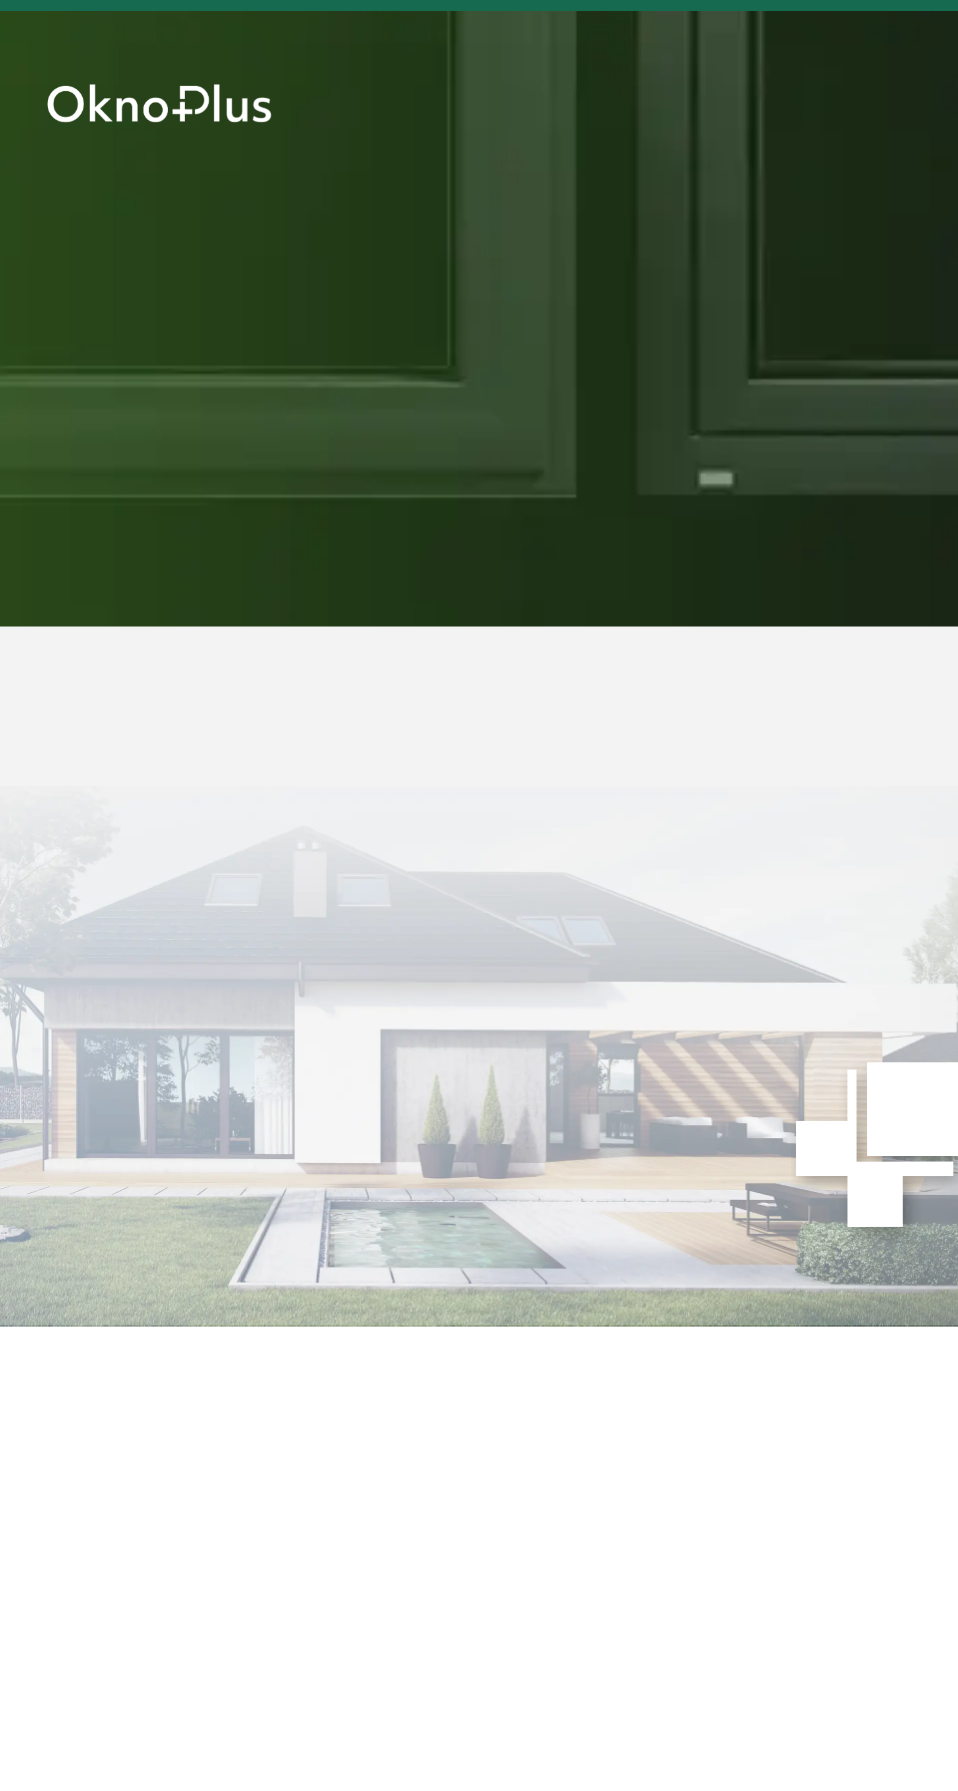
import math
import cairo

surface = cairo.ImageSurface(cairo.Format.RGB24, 958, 1791)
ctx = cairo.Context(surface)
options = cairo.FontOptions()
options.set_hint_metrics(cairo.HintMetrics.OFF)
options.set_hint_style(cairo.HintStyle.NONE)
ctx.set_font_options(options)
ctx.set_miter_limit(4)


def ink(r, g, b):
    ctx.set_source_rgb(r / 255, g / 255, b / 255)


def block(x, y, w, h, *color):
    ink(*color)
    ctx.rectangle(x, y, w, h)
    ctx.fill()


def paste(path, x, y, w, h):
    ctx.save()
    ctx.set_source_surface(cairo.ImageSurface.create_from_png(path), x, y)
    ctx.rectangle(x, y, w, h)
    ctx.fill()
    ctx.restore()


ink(255, 255, 255)
ctx.paint()
block(0, 0, 958, 11, 21, 106, 80)
block(0, 626, 958, 701, 243, 243, 243)
paste("pic3.png", 0, 11, 958, 616)
paste("pic1.png", 47, 84, 225, 39)
paste("pic2.png", 0, 786, 958, 541)
paste("pic4.png", 791, 1062, 167, 181)
surface.write_to_png("screenshot.png")
